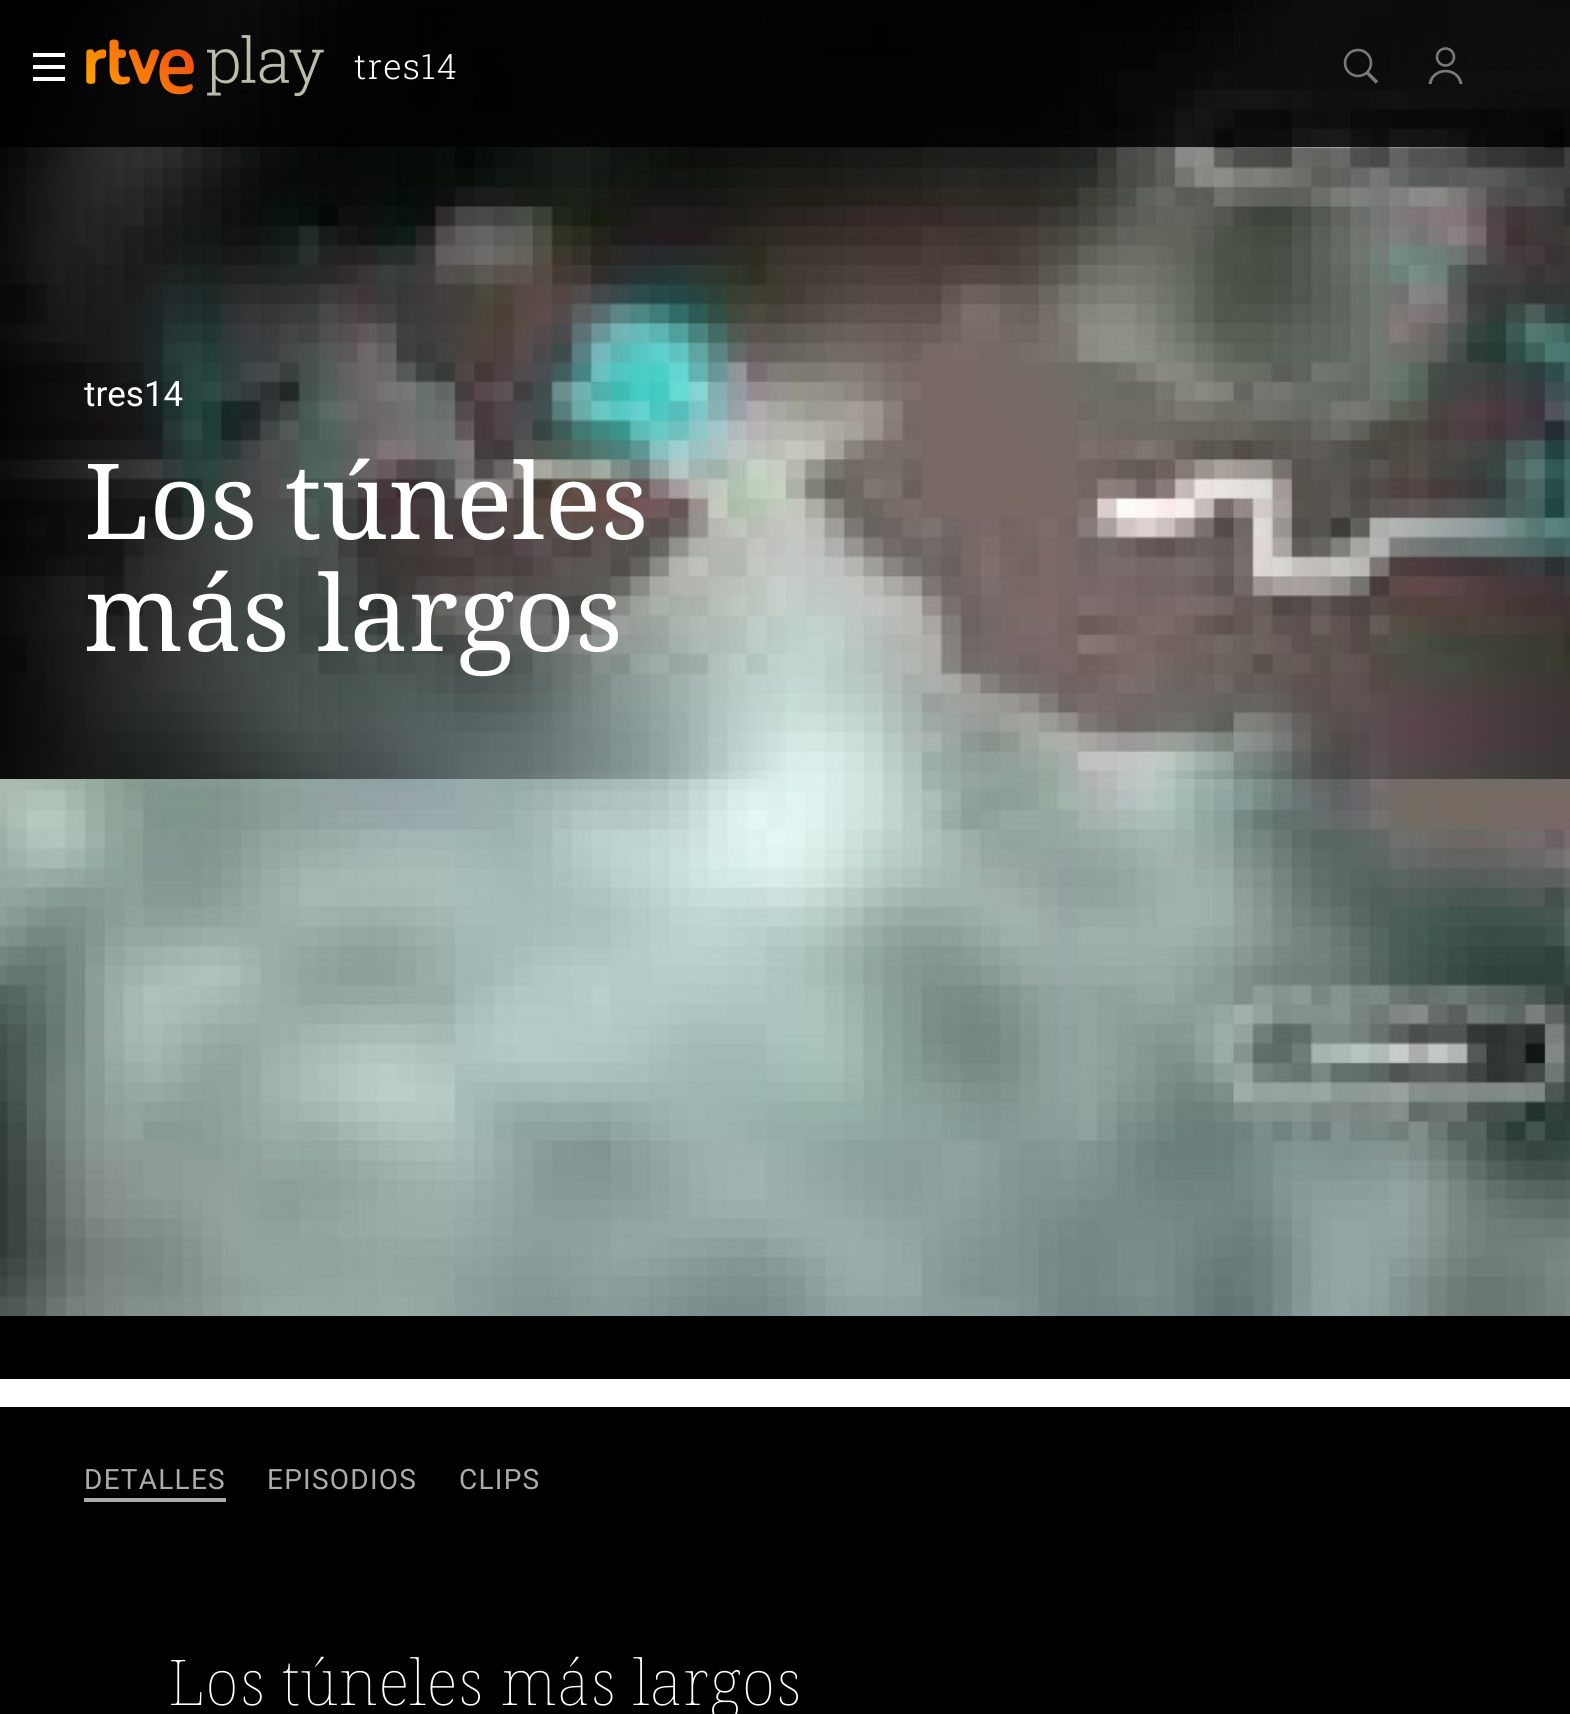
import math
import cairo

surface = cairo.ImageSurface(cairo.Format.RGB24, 1570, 1714)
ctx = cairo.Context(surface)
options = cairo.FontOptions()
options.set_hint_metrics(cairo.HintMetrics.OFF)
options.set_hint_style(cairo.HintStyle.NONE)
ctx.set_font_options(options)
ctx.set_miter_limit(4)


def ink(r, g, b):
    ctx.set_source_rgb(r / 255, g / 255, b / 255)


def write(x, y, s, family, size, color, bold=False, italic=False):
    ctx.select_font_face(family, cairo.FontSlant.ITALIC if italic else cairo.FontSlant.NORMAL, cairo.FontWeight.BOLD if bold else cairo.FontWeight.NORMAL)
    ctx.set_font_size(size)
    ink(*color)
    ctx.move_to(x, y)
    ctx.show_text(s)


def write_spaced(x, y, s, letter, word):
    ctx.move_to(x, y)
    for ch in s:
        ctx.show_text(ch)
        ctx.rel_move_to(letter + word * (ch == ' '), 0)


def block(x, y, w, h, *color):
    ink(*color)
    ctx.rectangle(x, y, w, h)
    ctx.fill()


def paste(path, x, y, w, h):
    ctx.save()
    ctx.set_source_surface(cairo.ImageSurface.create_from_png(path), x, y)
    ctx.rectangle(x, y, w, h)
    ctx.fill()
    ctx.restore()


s1 = dict(family="Roboto", size=35, color=(255, 255, 255))
s2 = dict(family="Noto Serif", size=105, color=(255, 255, 255))

ink(0, 0, 0)
ctx.paint()
paste("pic3.png", 0, 0, 1570, 1316)
ctx.set_source_rgba(0, 0, 0, 0.85)
ctx.rectangle(0, 0, 1570, 147)
ctx.fill()
block(33, 53, 32, 4, 255, 255, 255)
block(33, 65, 32, 4, 255, 255, 255)
block(33, 77, 32, 4, 255, 255, 255)
paste("pic1.png", 86, 39, 108, 56)
paste("pic2.png", 207, 35, 117, 62)
ctx.select_font_face("Roboto Slab Light")
ctx.set_font_size(35)
write_spaced(354, 79, "tres14", 1.25, 0)
ctx.new_path()
ctx.arc(1358, 63, 13, 0, 2 * math.pi)
ink(121, 121, 121)
ctx.set_line_width(2.6)
ctx.stroke()
ctx.new_path()
ctx.move_to(1367, 72.5)
ctx.line_to(1377, 82.5)
ctx.set_line_width(3.5)
ctx.stroke()
ink(122, 122, 122)
ctx.new_path()
ctx.move_to(1431.5, 84)
ctx.curve_to(1434, 68.5, 1457, 68.5, 1459.5, 84)
ctx.line_to(1462.5, 84)
ctx.curve_to(1459.5, 65, 1431.5, 65, 1428.5, 84)
ctx.close_path()
ctx.fill()
ctx.arc(1445.5, 57, 8.5, 0, 2 * math.pi)
ink(121, 121, 121)
ctx.set_line_width(2.6)
ctx.stroke()
write(84, 406, "tres14", **s1)
write(84, 539, "Los túneles", **s2)
write(84, 651, "más largos", **s2)
block(0, 1379, 1570, 28, 255, 255, 255)
block(84, 1498, 142, 4, 171, 171, 171)
ctx.select_font_face("Roboto")
ctx.set_font_size(28)
write_spaced(84, 1489, "DETALLES", 1.25, 0)
write_spaced(267, 1489, "EPISODIOS", 1.25, 0)
write_spaced(459, 1489, "CLIPS", 1.25, 0)
ctx.select_font_face("Noto Serif Thin")
ctx.set_font_size(63)
ink(255, 255, 255)
write_spaced(168, 1705, "Los túneles más largos", 0.6, -0.5)
surface.write_to_png("screenshot.png")
